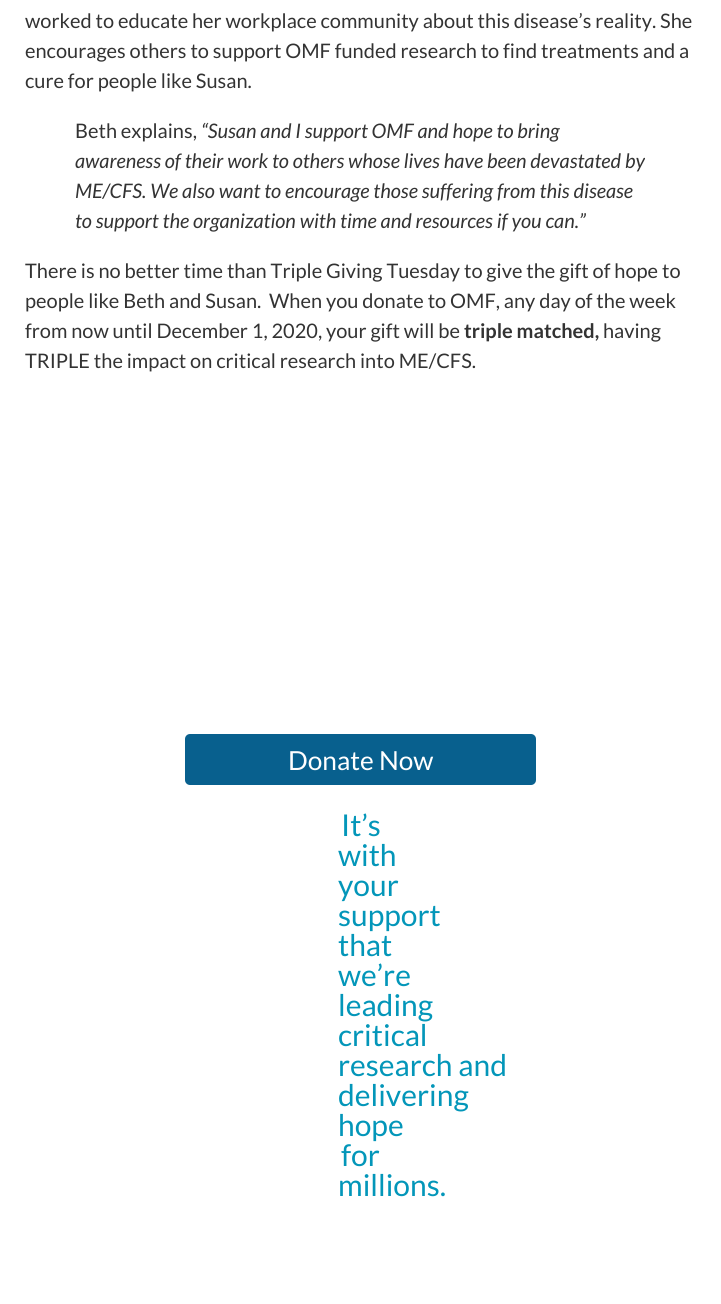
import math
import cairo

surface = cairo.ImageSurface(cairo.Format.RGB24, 721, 1304)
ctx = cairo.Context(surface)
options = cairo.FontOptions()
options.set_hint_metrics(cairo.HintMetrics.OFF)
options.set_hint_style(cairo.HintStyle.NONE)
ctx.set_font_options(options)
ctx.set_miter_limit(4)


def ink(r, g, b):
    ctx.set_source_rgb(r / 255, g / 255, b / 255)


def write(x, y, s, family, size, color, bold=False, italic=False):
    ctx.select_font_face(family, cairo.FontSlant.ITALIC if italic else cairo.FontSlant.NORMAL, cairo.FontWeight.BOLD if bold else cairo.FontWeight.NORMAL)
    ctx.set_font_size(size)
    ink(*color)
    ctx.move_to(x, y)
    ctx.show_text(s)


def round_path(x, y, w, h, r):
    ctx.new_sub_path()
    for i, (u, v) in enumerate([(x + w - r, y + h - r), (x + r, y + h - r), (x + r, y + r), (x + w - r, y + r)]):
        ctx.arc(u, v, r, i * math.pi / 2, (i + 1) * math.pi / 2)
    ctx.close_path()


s1 = dict(family="Lato", size=20, color=(51, 51, 51))
s2 = dict(family="Lato", size=20, color=(51, 51, 51), italic=True)
s3 = dict(family="Lato", size=20, color=(51, 51, 51), bold=True)
s4 = dict(family="Lato", size=26.25, color=(255, 255, 255))
s5 = dict(family="Lato", size=30, color=(3, 150, 185))

ink(255, 255, 255)
ctx.paint()
write(25, 28, "worked to educate her workplace community about this disease’s reality. She", **s1)
write(25, 58, "encourages others to support OMF funded research to find treatments and a", **s1)
write(25, 88, "cure for people like Susan.", **s1)
write(75, 138, "Beth explains,", **s1)
write(201, 138, "“Susan and I support OMF and hope to bring", **s2)
write(75, 168, "awareness of their work to others whose lives have been devastated by", **s2)
write(75, 198, "ME/CFS. We also want to encourage those suffering from this disease", **s2)
write(75, 228, "to support the organization with time and resources if you can.”", **s2)
write(25, 278, "There is no better time than Triple Giving Tuesday to give the gift of hope to", **s1)
write(25, 308, "people like Beth and Susan.  When you donate to OMF, any day of the week", **s1)
write(25, 338, "from now until December 1, 2020, your gift will be", **s1)
write(464, 338, "triple matched,", **s3)
write(603, 338, "having", **s1)
write(25, 368, "TRIPLE the impact on critical research into ME/CFS.", **s1)
ink(8, 96, 142)
round_path(185, 734, 351, 51, 5)
ctx.fill()
write(288, 770, "Donate Now", **s4)
write(341, 836, "It’s", **s5)
write(338, 866, "with", **s5)
write(338, 896, "your", **s5)
write(338, 926, "support", **s5)
write(338, 956, "that", **s5)
write(338, 986, "we’re", **s5)
write(338, 1016, "leading", **s5)
write(338, 1046, "critical", **s5)
write(338, 1076, "research and", **s5)
write(338, 1106, "delivering", **s5)
write(338, 1136, "hope", **s5)
write(341, 1166, "for", **s5)
write(338, 1196, "millions.", **s5)
surface.write_to_png("screenshot.png")
